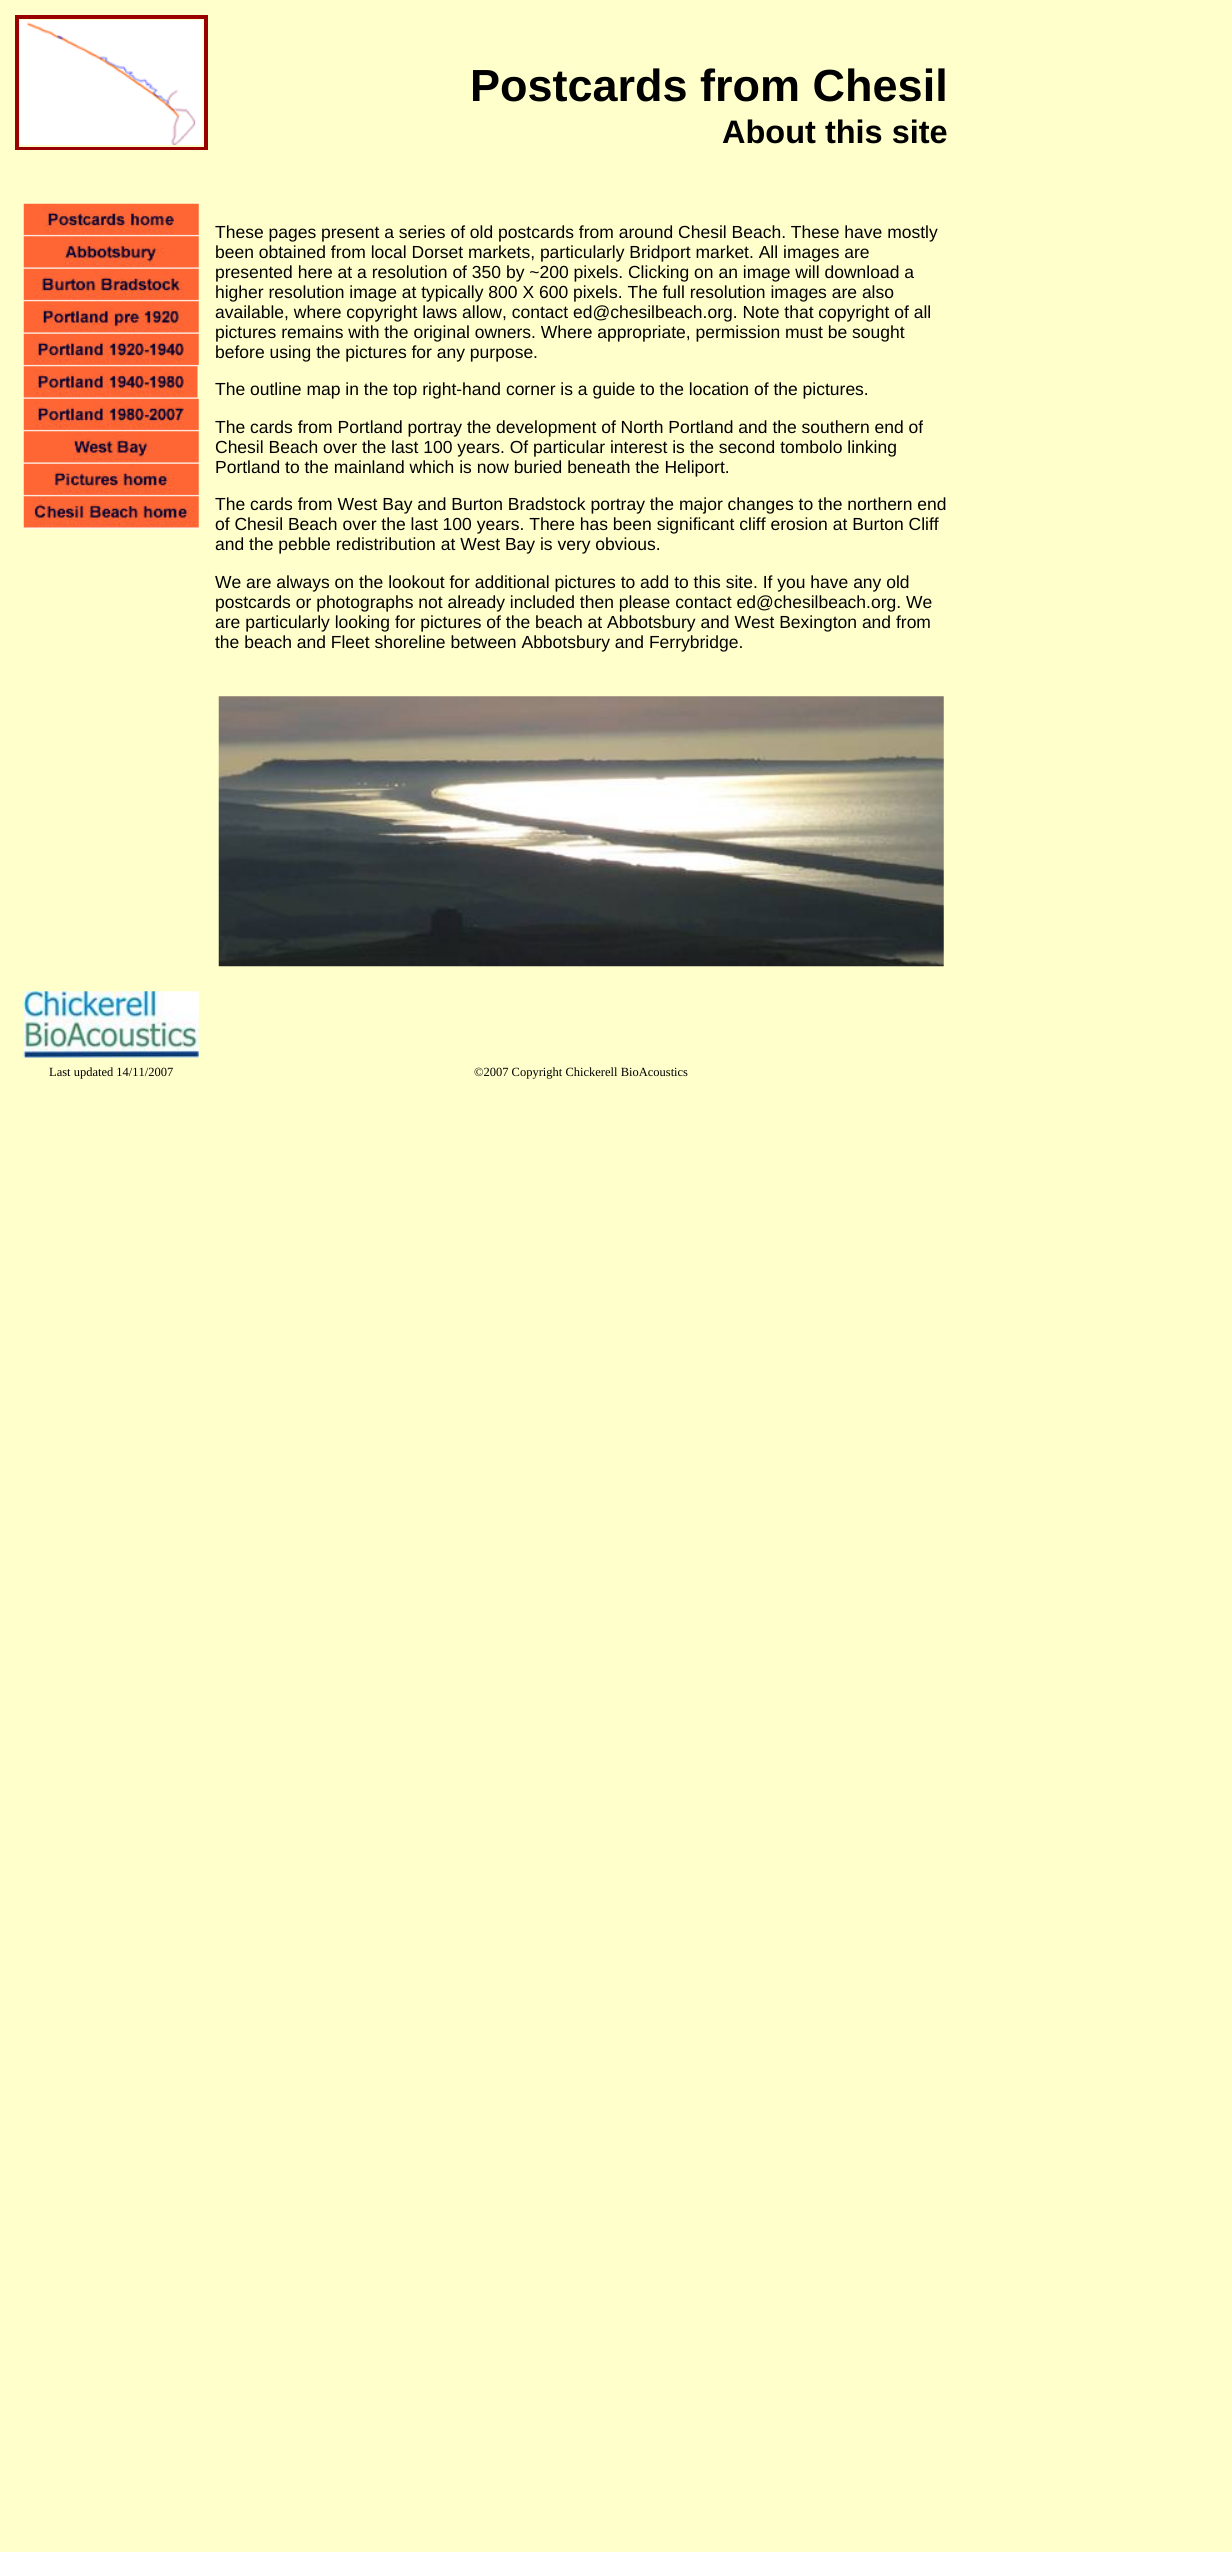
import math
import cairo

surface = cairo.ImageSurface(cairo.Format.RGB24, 1232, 2552)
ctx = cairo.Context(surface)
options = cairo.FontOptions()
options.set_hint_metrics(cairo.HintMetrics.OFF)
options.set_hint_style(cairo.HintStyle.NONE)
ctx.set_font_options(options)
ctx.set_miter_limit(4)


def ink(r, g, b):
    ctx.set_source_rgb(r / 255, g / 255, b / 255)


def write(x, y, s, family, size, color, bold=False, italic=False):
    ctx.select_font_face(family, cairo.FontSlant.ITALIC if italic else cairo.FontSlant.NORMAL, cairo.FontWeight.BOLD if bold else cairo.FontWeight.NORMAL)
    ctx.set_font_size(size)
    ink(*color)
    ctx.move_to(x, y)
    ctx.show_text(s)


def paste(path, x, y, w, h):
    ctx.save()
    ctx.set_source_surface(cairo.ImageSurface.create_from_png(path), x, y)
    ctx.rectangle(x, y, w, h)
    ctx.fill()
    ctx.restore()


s1 = dict(family="Liberation Sans", size=45, color=(0, 0, 0), bold=True)
s2 = dict(family="Liberation Sans", size=32.5, color=(0, 0, 0), bold=True)
s3 = dict(family="Liberation Sans", size=17.5, color=(0, 0, 0))
s4 = dict(family="Liberation Serif", size=12.5, color=(0, 0, 0))

ink(255, 255, 204)
ctx.paint()
ctx.rectangle(16.5, 16.5, 190, 132)
ink(153, 0, 0)
ctx.set_line_width(3)
ctx.stroke()
ctx.rectangle(18.5, 18.5, 186, 129)
ctx.set_line_width(1)
ctx.stroke()
paste("pic1.png", 20, 20, 183, 125)
write(470, 101, "Postcards from Chesil", **s1)
write(722, 143, "About this site", **s2)
paste("pic2.png", 23, 203, 176, 34)
paste("pic3.png", 23, 236, 176, 33)
paste("pic4.png", 23, 268, 176, 34)
paste("pic5.png", 23, 301, 176, 33)
paste("pic6.png", 23, 333, 176, 34)
paste("pic7.png", 23, 366, 175, 33)
paste("pic8.png", 23, 398, 176, 34)
paste("pic9.png", 23, 431, 176, 33)
paste("pic10.png", 23, 463, 176, 34)
paste("pic11.png", 23, 496, 176, 33)
write(215, 238, "These pages present a series of old postcards from around Chesil Beach. These have mostly", **s3)
write(215, 258, "been obtained from local Dorset markets, particularly Bridport market. All images are", **s3)
write(215, 278, "presented here at a resolution of 350 by ~200 pixels. Clicking on an image will download a", **s3)
write(215, 298, "higher resolution image at typically 800 X 600 pixels. The full resolution images are also", **s3)
write(215, 318, "available, where copyright laws allow, contact ed@chesilbeach.org. Note that copyright of all", **s3)
write(215, 338, "pictures remains with the original owners. Where appropriate, permission must be sought", **s3)
write(215, 358, "before using the pictures for any purpose.", **s3)
write(215, 395, "The outline map in the top right-hand corner is a guide to the location of the pictures.", **s3)
write(215, 433, "The cards from Portland portray the development of North Portland and the southern end of", **s3)
write(215, 453, "Chesil Beach over the last 100 years. Of particular interest is the second tombolo linking", **s3)
write(215, 473, "Portland to the mainland which is now buried beneath the Heliport.", **s3)
write(215, 510, "The cards from West Bay and Burton Bradstock portray the major changes to the northern end", **s3)
write(215, 530, "of Chesil Beach over the last 100 years. There has been significant cliff erosion at Burton Cliff", **s3)
write(215, 550, "and the pebble redistribution at West Bay is very obvious.", **s3)
write(215, 588, "We are always on the lookout for additional pictures to add to this site. If you have any old", **s3)
write(215, 608, "postcards or photographs not already included then please contact ed@chesilbeach.org. We", **s3)
write(215, 628, "are particularly looking for pictures of the beach at Abbotsbury and West Bexington and from", **s3)
write(215, 648, "the beach and Fleet shoreline between Abbotsbury and Ferrybridge.", **s3)
paste("pic12.png", 218, 696, 726, 271)
paste("pic13.png", 23, 991, 176, 67)
write(49, 1076, "Last updated 14/11/2007", **s4)
write(474, 1076, "©2007 Copyright Chickerell BioAcoustics", **s4)
surface.write_to_png("screenshot.png")
